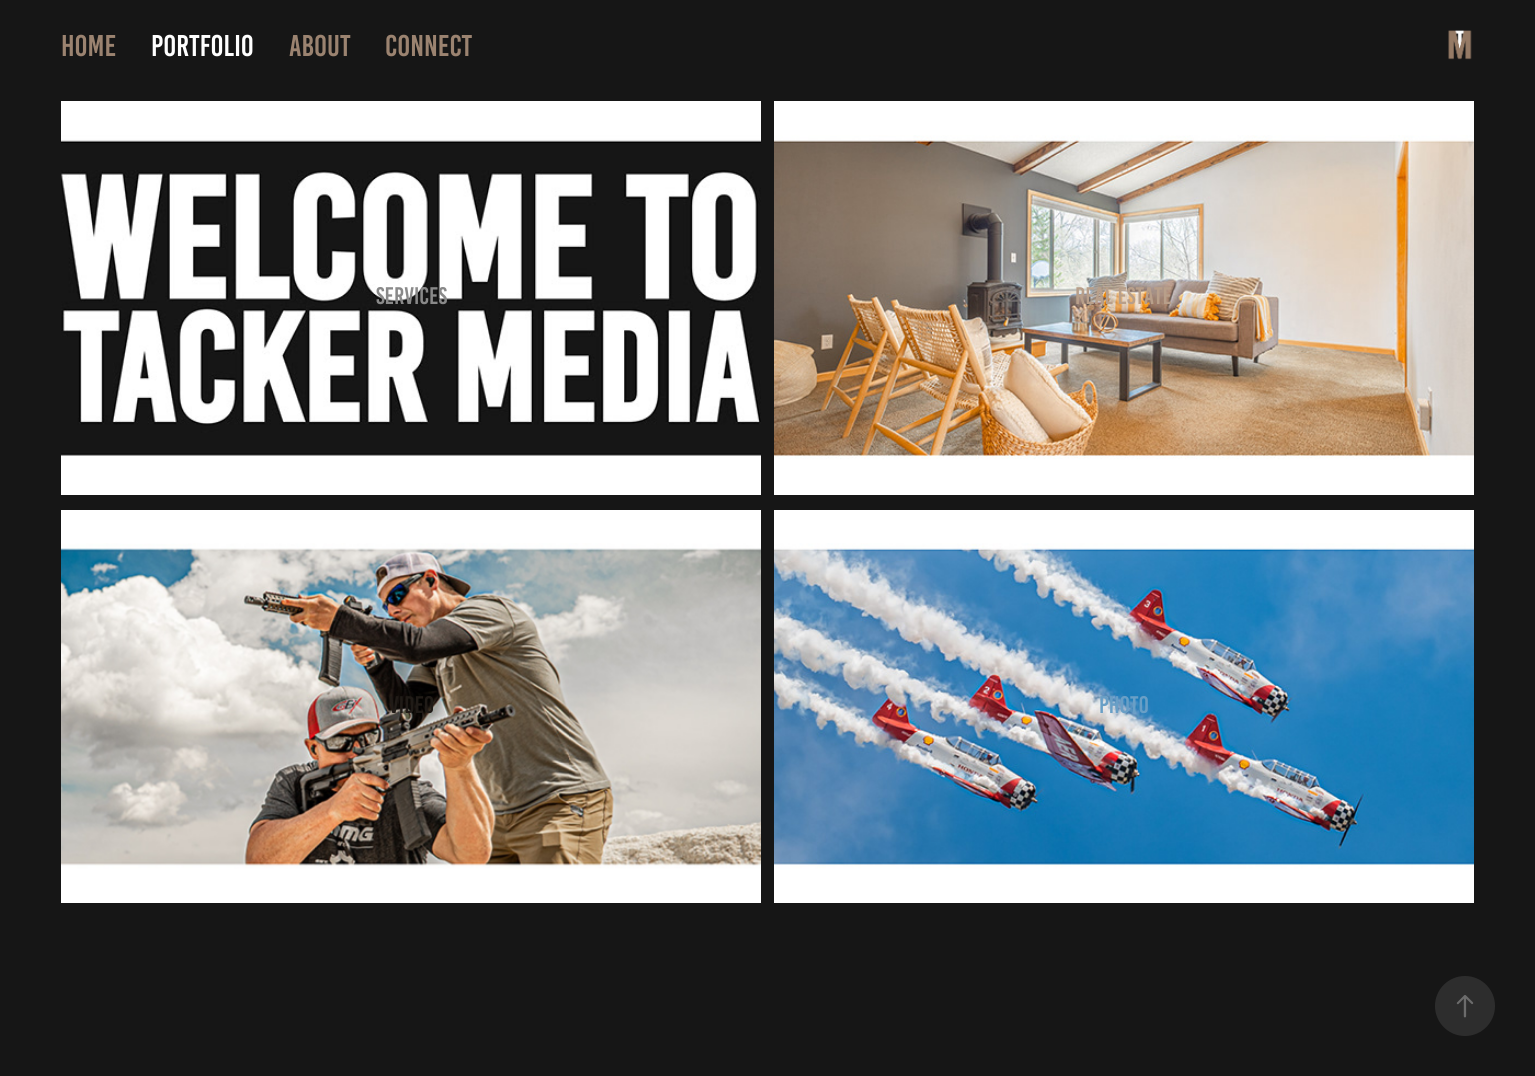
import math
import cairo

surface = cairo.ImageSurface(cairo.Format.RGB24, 1535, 1076)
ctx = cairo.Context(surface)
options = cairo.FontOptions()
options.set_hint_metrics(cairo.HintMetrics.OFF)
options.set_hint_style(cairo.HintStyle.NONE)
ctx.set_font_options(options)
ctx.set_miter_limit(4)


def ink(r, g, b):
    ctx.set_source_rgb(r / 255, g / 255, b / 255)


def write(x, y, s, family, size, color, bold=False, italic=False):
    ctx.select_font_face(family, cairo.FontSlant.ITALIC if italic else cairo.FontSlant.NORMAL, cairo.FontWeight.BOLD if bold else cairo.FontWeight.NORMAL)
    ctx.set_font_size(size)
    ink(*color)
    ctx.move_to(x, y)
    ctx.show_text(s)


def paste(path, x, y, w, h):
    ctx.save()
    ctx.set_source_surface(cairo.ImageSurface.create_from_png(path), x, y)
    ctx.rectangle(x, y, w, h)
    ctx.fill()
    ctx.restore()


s1 = dict(family="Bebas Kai", size=30, color=(155, 131, 112))
s2 = dict(family="Bebas Kai", size=30, color=(255, 255, 255))
s3 = dict(family="Bebas Kai", size=24, color=(137, 137, 137))
s4 = dict(family="Bebas Kai", size=24, color=(184, 159, 138))
s5 = dict(family="Bebas Kai", size=24, color=(32, 27, 23))
s6 = dict(family="Bebas Kai", size=24, color=(105, 159, 198))

ink(22, 22, 22)
ctx.paint()
write(61, 56, "HOME", **s1)
write(151, 56, "PORTFOLIO", **s2)
write(289, 56, "ABOUT", **s1)
write(385, 56, "CONNECT", **s1)
paste("pic1.png", 1448, 30, 24, 30)
paste("pic2.png", 61, 101, 700, 394)
write(376, 304, "SERVICES", **s3)
paste("pic3.png", 774, 101, 700, 394)
write(1075, 304, "REAL ESTATE", **s4)
paste("pic4.png", 61, 510, 700, 393)
write(389, 713, "VIDEO", **s5)
paste("pic5.png", 774, 510, 700, 393)
write(1099, 713, "PHOTO", **s6)
ink(45, 45, 45)
ctx.new_path()
ctx.arc(1465, 1006, 30, 0, 2 * math.pi)
ctx.fill()
paste("pic6.png", 1456, 995, 18, 23)
surface.write_to_png("screenshot.png")
